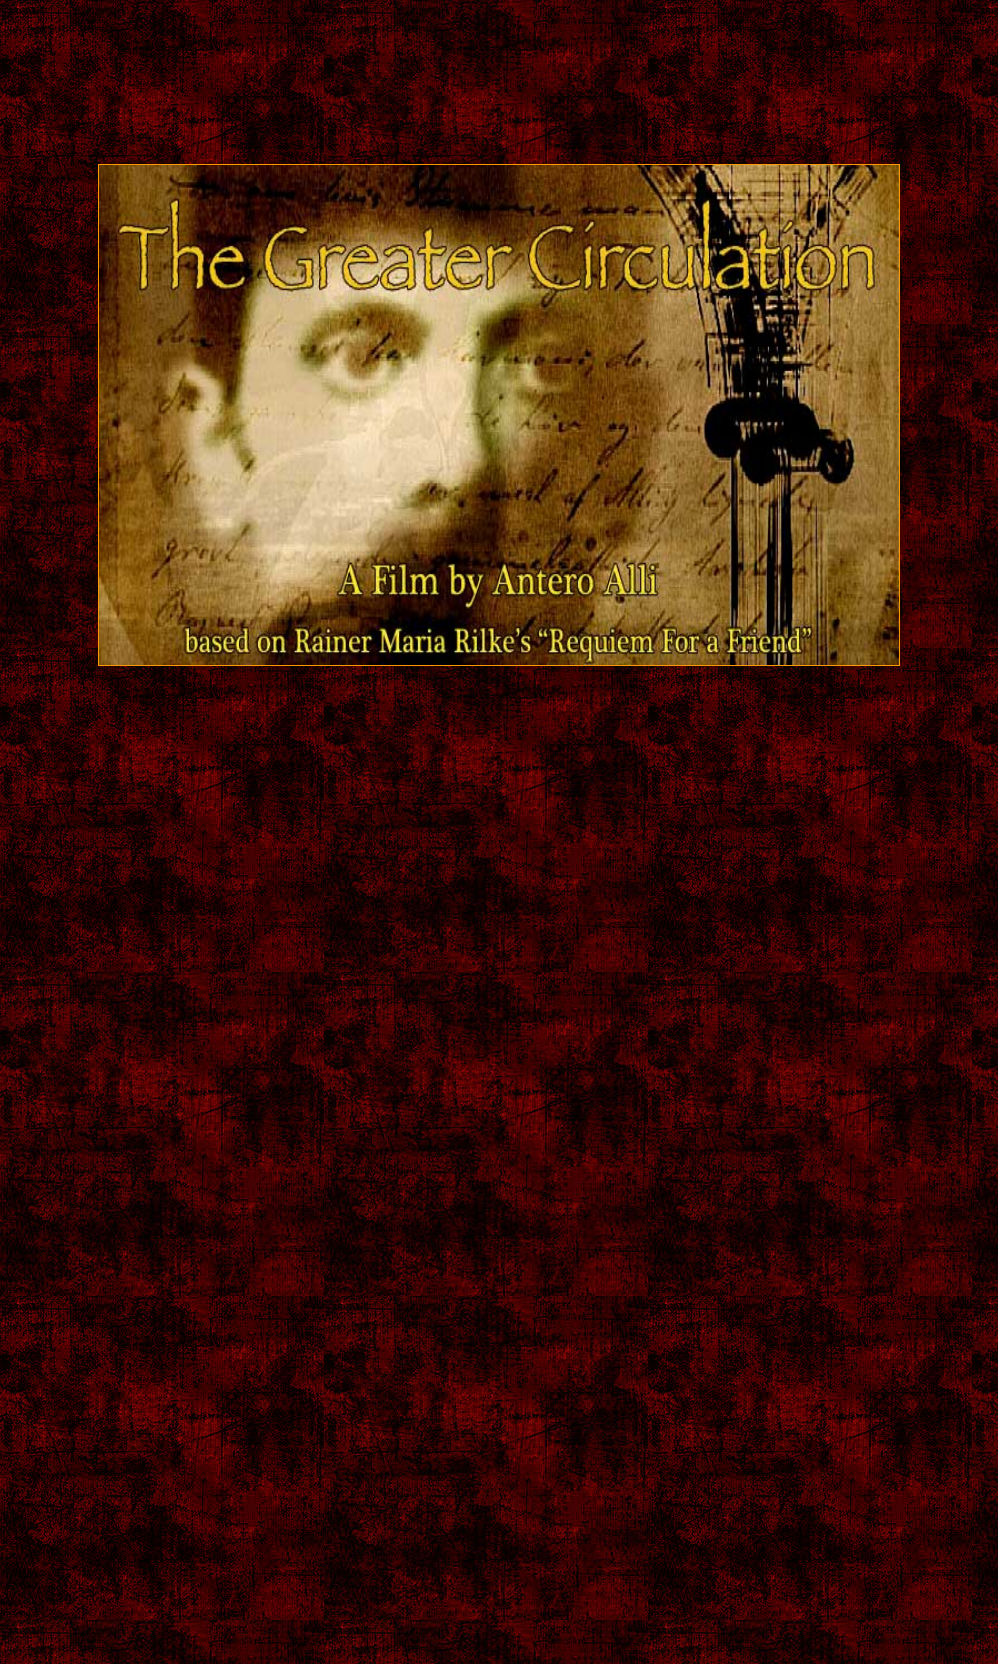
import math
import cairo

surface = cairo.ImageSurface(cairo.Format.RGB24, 998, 1664)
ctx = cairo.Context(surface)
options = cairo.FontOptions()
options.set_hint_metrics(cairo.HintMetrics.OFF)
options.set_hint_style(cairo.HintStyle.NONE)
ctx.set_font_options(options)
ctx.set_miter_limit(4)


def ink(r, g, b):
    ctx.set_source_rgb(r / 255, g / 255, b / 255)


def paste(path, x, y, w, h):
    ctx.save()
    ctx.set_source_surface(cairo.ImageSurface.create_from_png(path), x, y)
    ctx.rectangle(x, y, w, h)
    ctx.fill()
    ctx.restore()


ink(255, 255, 255)
ctx.paint()
paste("pic1.png", 0, 0, 998, 1664)
ctx.rectangle(98.5, 164.5, 801, 501)
ink(255, 153, 0)
ctx.set_line_width(1)
ctx.stroke()
paste("pic2.png", 99, 165, 800, 500)
surface.write_to_png("screenshot.png")
